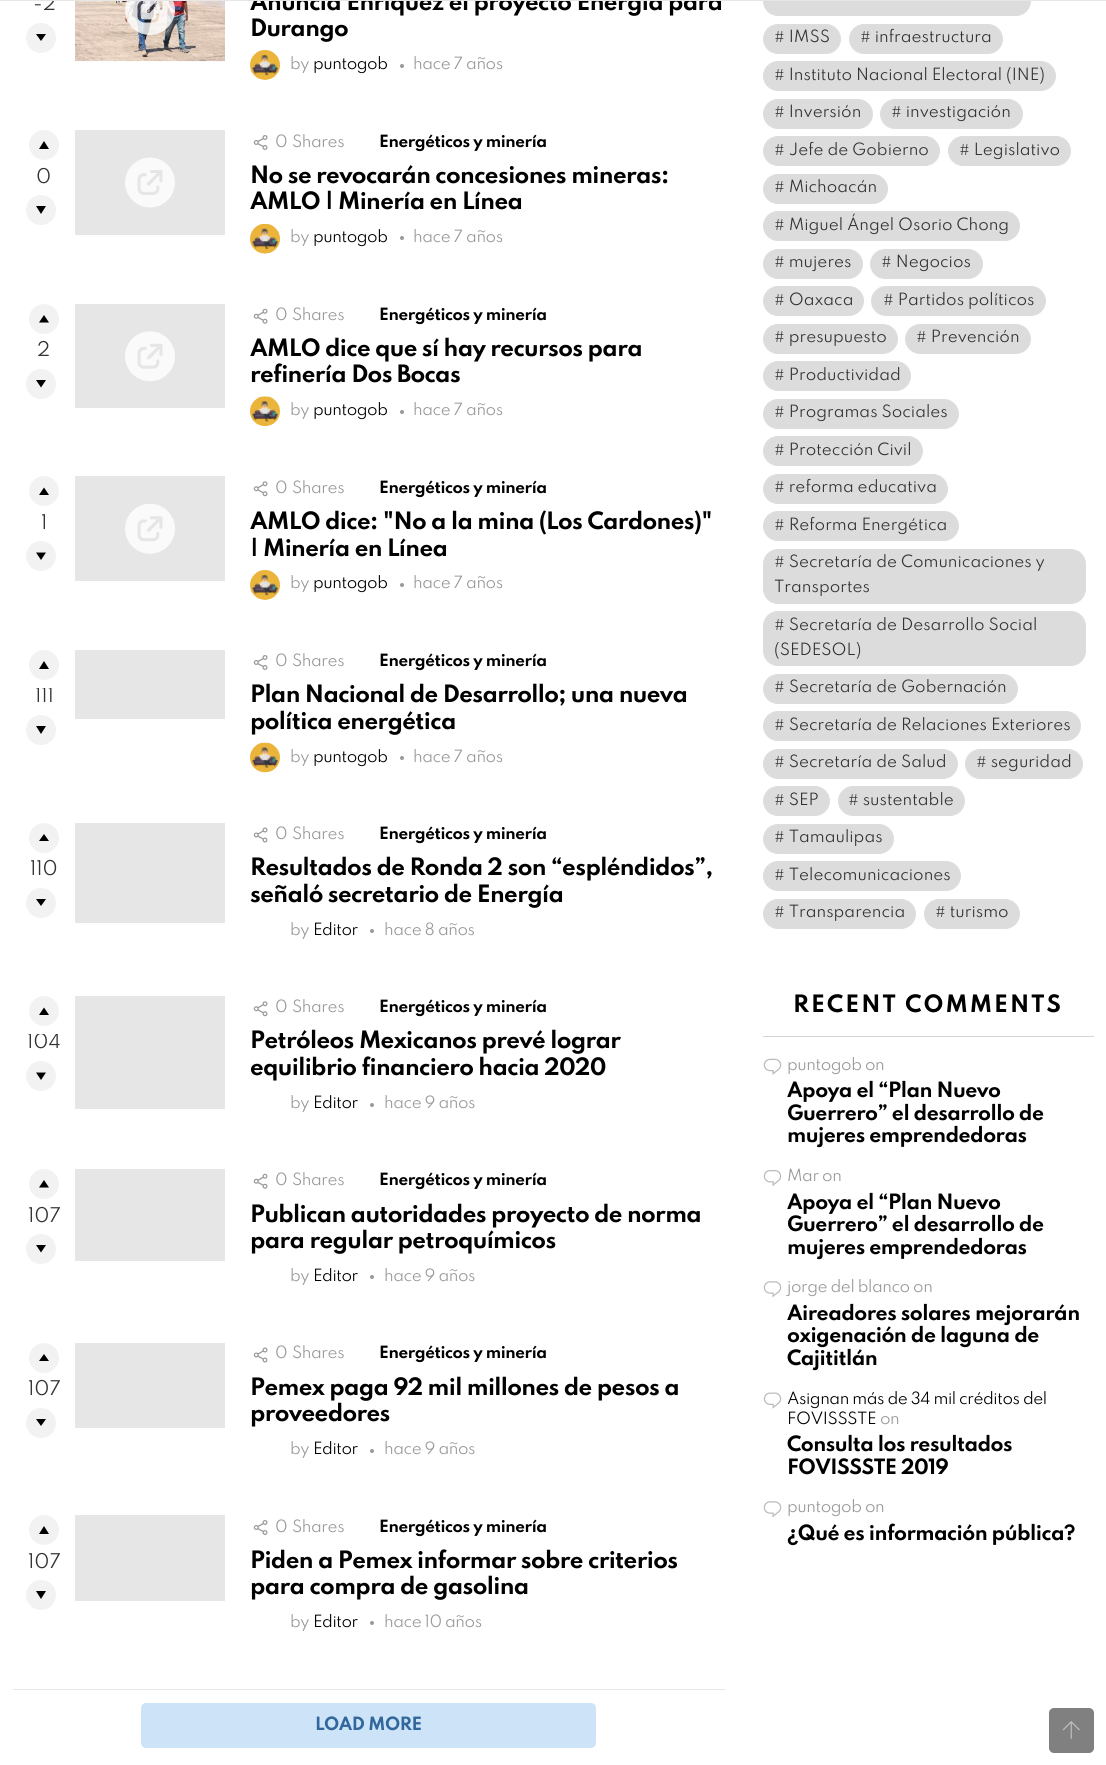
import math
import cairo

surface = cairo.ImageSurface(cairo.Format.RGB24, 1106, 1765)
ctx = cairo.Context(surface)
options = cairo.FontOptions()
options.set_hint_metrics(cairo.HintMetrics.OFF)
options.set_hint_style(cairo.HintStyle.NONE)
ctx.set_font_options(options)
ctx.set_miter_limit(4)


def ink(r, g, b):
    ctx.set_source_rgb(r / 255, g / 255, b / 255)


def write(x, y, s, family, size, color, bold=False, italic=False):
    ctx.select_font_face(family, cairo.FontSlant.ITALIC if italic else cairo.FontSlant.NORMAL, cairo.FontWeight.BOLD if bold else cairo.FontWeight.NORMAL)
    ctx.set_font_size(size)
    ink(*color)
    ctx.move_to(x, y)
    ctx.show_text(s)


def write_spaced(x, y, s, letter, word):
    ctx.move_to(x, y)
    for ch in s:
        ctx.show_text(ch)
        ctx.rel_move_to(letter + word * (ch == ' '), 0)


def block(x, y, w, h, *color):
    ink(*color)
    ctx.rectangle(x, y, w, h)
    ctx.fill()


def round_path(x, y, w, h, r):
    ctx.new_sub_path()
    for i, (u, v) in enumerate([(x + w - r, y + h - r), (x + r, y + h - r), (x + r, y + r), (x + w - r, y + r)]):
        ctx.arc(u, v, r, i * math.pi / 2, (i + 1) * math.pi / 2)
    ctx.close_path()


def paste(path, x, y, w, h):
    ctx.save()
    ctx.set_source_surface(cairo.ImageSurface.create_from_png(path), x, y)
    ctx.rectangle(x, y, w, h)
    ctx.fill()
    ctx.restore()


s1 = dict(family="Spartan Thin", size=18, color=(51, 51, 51))
s2 = dict(family="Spartan Thin", size=15, color=(51, 51, 51))

ink(255, 255, 255)
ctx.paint()
write(33, 10, "-2", **s1)
ctx.select_font_face("Spartan Thin", cairo.FontSlant.NORMAL, cairo.FontWeight.BOLD)
ctx.set_font_size(21.25)
ink(0, 0, 0)
write_spaced(250, 10, "Anuncia Enríquez el proyecto Energía para", -0.65, 0)
ctx.set_source_rgba(0.2, 0.2, 0.2, 0.17)
round_path(763.5, -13.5, 267, 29, 14.5)
ctx.fill_preserve()
ink(221, 221, 221)
ctx.set_line_width(1)
ctx.stroke()
block(0, 0, 1106, 1, 230, 230, 230)
ink(242, 242, 242)
ctx.arc(41, 38, 15, 0, 2 * math.pi)
ctx.fill()
ink(0, 0, 0)
ctx.new_path()
ctx.move_to(41, 41)
ctx.line_to(36, 34)
ctx.line_to(46, 34)
ctx.close_path()
ctx.fill()
write_spaced(250, 36, "Durango", -0.65, 0)
ctx.select_font_face("Spartan Thin")
ctx.set_font_size(15)
ink(153, 153, 153)
write_spaced(290, 69, "by", -0.45, 0)
paste("pic1.png", 250, 50, 30, 30)
ink(0, 0, 0)
write_spaced(313, 69, "puntogob", -0.45, 0)
ink(153, 153, 153)
ctx.new_path()
ctx.arc(402, 66, 2, 0, 2 * math.pi)
ctx.fill()
write_spaced(413, 69, "hace 7 años", -0.45, 0)
paste("pic2.png", 75, 1, 150, 61)
paste("pic3.png", 125, 1, 50, 34)
block(75, 130, 150, 105, 230, 230, 230)
paste("pic4.png", 125, 157, 50, 51)
ink(242, 242, 242)
ctx.arc(44, 145, 15, 0, 2 * math.pi)
ctx.fill()
ink(0, 0, 0)
ctx.new_path()
ctx.move_to(44, 141)
ctx.line_to(39, 149)
ctx.line_to(49, 149)
ctx.close_path()
ctx.fill()
write(36, 183, "0", **s1)
ink(242, 242, 242)
ctx.new_path()
ctx.arc(41, 210, 15, 0, 2 * math.pi)
ctx.fill()
ink(0, 0, 0)
ctx.new_path()
ctx.move_to(41, 214)
ctx.line_to(36, 206)
ctx.line_to(46, 206)
ctx.close_path()
ctx.fill()
paste("pic5.png", 253, 135, 15, 15)
ctx.set_font_size(15)
ink(153, 153, 153)
write_spaced(275, 147, "0", -0.45, 0)
write_spaced(292, 147, "Shares", -0.45, 0)
ctx.select_font_face("Spartan Thin", cairo.FontSlant.NORMAL, cairo.FontWeight.BOLD)
ink(0, 0, 0)
write_spaced(379, 147, "Energéticos y minería", -0.45, 0)
ctx.set_font_size(21.25)
write_spaced(250, 183, "No se revocarán concesiones mineras:", -0.65, 0)
write_spaced(250, 209, "AMLO | Minería en Línea", -0.65, 0)
ctx.select_font_face("Spartan Thin")
ctx.set_font_size(15)
ink(153, 153, 153)
write_spaced(290, 242, "by", -0.45, 0)
paste("pic6.png", 250, 223, 30, 31)
ink(0, 0, 0)
write_spaced(313, 242, "puntogob", -0.45, 0)
ink(153, 153, 153)
ctx.new_path()
ctx.arc(402, 238, 2, 0, 2 * math.pi)
ctx.fill()
write_spaced(413, 242, "hace 7 años", -0.45, 0)
block(75, 304, 150, 104, 230, 230, 230)
paste("pic7.png", 125, 331, 50, 51)
ink(242, 242, 242)
ctx.arc(44, 319, 15, 0, 2 * math.pi)
ctx.fill()
ink(0, 0, 0)
ctx.new_path()
ctx.move_to(44, 315)
ctx.line_to(39, 322.5)
ctx.line_to(49, 322.5)
ctx.close_path()
ctx.fill()
write(37, 356, "2", **s1)
ink(242, 242, 242)
ctx.new_path()
ctx.arc(41, 384, 15, 0, 2 * math.pi)
ctx.fill()
ink(0, 0, 0)
ctx.new_path()
ctx.move_to(41, 387.5)
ctx.line_to(36, 380)
ctx.line_to(46, 380)
ctx.close_path()
ctx.fill()
paste("pic8.png", 253, 308, 15, 16)
ctx.set_font_size(15)
ink(153, 153, 153)
write_spaced(275, 320, "0", -0.45, 0)
write_spaced(292, 320, "Shares", -0.45, 0)
ctx.select_font_face("Spartan Thin", cairo.FontSlant.NORMAL, cairo.FontWeight.BOLD)
ink(0, 0, 0)
write_spaced(379, 320, "Energéticos y minería", -0.45, 0)
ctx.set_font_size(21.25)
write_spaced(250, 356, "AMLO dice que sí hay recursos para", -0.65, 0)
write_spaced(250, 382, "refinería Dos Bocas", -0.65, 0)
ctx.select_font_face("Spartan Thin")
ctx.set_font_size(15)
ink(153, 153, 153)
write_spaced(290, 415, "by", -0.45, 0)
paste("pic9.png", 250, 396, 30, 31)
ink(0, 0, 0)
write_spaced(313, 415, "puntogob", -0.45, 0)
ink(153, 153, 153)
ctx.new_path()
ctx.arc(402, 412, 2, 0, 2 * math.pi)
ctx.fill()
write_spaced(413, 415, "hace 7 años", -0.45, 0)
block(75, 476, 150, 105, 230, 230, 230)
paste("pic10.png", 125, 503, 50, 51)
ink(242, 242, 242)
ctx.arc(44, 491, 15, 0, 2 * math.pi)
ctx.fill()
ink(0, 0, 0)
ctx.new_path()
ctx.move_to(44, 487.5)
ctx.line_to(39, 495)
ctx.line_to(49, 495)
ctx.close_path()
ctx.fill()
write(41, 529, "1", **s1)
ink(242, 242, 242)
ctx.new_path()
ctx.arc(41, 556, 15, 0, 2 * math.pi)
ctx.fill()
ink(0, 0, 0)
ctx.new_path()
ctx.move_to(41, 560)
ctx.line_to(36, 552.5)
ctx.line_to(46, 552.5)
ctx.close_path()
ctx.fill()
paste("pic11.png", 253, 481, 15, 16)
ctx.set_font_size(15)
ink(153, 153, 153)
write_spaced(275, 493, "0", -0.45, 0)
write_spaced(292, 493, "Shares", -0.45, 0)
ctx.select_font_face("Spartan Thin", cairo.FontSlant.NORMAL, cairo.FontWeight.BOLD)
ink(0, 0, 0)
write_spaced(379, 493, "Energéticos y minería", -0.45, 0)
ctx.set_font_size(21.25)
write_spaced(250, 529, "AMLO dice: \"No a la mina (Los Cardones)\"", -0.65, 0)
write_spaced(250, 556, "| Minería en Línea", -0.65, 0)
ctx.select_font_face("Spartan Thin")
ctx.set_font_size(15)
ink(153, 153, 153)
write_spaced(290, 588, "by", -0.45, 0)
paste("pic1.png", 250, 570, 30, 30)
ink(0, 0, 0)
write_spaced(313, 588, "puntogob", -0.45, 0)
ink(153, 153, 153)
ctx.new_path()
ctx.arc(402, 585, 2, 0, 2 * math.pi)
ctx.fill()
write_spaced(413, 588, "hace 7 años", -0.45, 0)
block(75, 650, 150, 69, 230, 230, 230)
ink(242, 242, 242)
ctx.new_path()
ctx.arc(44, 665, 15, 0, 2 * math.pi)
ctx.fill()
ink(0, 0, 0)
ctx.new_path()
ctx.move_to(44, 661)
ctx.line_to(39, 669)
ctx.line_to(49, 669)
ctx.close_path()
ctx.fill()
ctx.save()
ctx.rectangle(35, 688, 18, 20)
ctx.clip()
write(35, 702, "111", **s1)
ctx.restore()
ink(242, 242, 242)
ctx.new_path()
ctx.arc(41, 730, 15, 0, 2 * math.pi)
ctx.fill()
ink(0, 0, 0)
ctx.new_path()
ctx.move_to(41, 734)
ctx.line_to(36, 726)
ctx.line_to(46, 726)
ctx.close_path()
ctx.fill()
paste("pic5.png", 253, 655, 15, 15)
ink(153, 153, 153)
write_spaced(275, 666, "0", -0.45, 0)
write_spaced(292, 666, "Shares", -0.45, 0)
ctx.select_font_face("Spartan Thin", cairo.FontSlant.NORMAL, cairo.FontWeight.BOLD)
ink(0, 0, 0)
write_spaced(379, 666, "Energéticos y minería", -0.45, 0)
ctx.set_font_size(21.25)
write_spaced(250, 702, "Plan Nacional de Desarrollo; una nueva", -0.65, 0)
write_spaced(250, 729, "política energética", -0.65, 0)
ctx.select_font_face("Spartan Thin")
ctx.set_font_size(15)
ink(153, 153, 153)
write_spaced(290, 762, "by", -0.45, 0)
paste("pic12.png", 250, 742, 30, 31)
ink(0, 0, 0)
write_spaced(313, 762, "puntogob", -0.45, 0)
ink(153, 153, 153)
ctx.new_path()
ctx.arc(402, 758, 2, 0, 2 * math.pi)
ctx.fill()
write_spaced(413, 762, "hace 7 años", -0.45, 0)
block(75, 823, 150, 100, 230, 230, 230)
ink(242, 242, 242)
ctx.new_path()
ctx.arc(44, 838, 15, 0, 2 * math.pi)
ctx.fill()
ink(0, 0, 0)
ctx.new_path()
ctx.move_to(44, 834)
ctx.line_to(39, 841)
ctx.line_to(49, 841)
ctx.close_path()
ctx.fill()
write(30, 875, "110", **s1)
ink(242, 242, 242)
ctx.new_path()
ctx.arc(41, 903, 15, 0, 2 * math.pi)
ctx.fill()
ink(0, 0, 0)
ctx.new_path()
ctx.move_to(41, 906)
ctx.line_to(36, 899)
ctx.line_to(46, 899)
ctx.close_path()
ctx.fill()
paste("pic13.png", 253, 827, 15, 16)
ctx.set_font_size(15)
ink(153, 153, 153)
write_spaced(275, 839, "0", -0.45, 0)
write_spaced(292, 839, "Shares", -0.45, 0)
ctx.select_font_face("Spartan Thin", cairo.FontSlant.NORMAL, cairo.FontWeight.BOLD)
ink(0, 0, 0)
write_spaced(379, 839, "Energéticos y minería", -0.45, 0)
ctx.set_font_size(21.25)
write_spaced(250, 875, "Resultados de Ronda 2 son “espléndidos”,", -0.65, 0)
write_spaced(250, 902, "señaló secretario de Energía", -0.65, 0)
ctx.select_font_face("Spartan Thin")
ctx.set_font_size(15)
ink(153, 153, 153)
write_spaced(290, 935, "by", -0.45, 0)
ink(0, 0, 0)
write_spaced(313, 935, "Editor", -0.45, 0)
ink(153, 153, 153)
ctx.new_path()
ctx.arc(372, 931, 2, 0, 2 * math.pi)
ctx.fill()
write_spaced(384, 935, "hace 8 años", -0.45, 0)
block(75, 996, 150, 113, 230, 230, 230)
ink(242, 242, 242)
ctx.new_path()
ctx.arc(44, 1011, 15, 0, 2 * math.pi)
ctx.fill()
ink(0, 0, 0)
ctx.new_path()
ctx.move_to(44, 1007.5)
ctx.line_to(39, 1015)
ctx.line_to(49, 1015)
ctx.close_path()
ctx.fill()
ctx.save()
ctx.rectangle(28, 1034, 32, 20)
ctx.clip()
write(27, 1048, "104", **s1)
ctx.restore()
ink(242, 242, 242)
ctx.new_path()
ctx.arc(41, 1076, 15, 0, 2 * math.pi)
ctx.fill()
ink(0, 0, 0)
ctx.new_path()
ctx.move_to(41, 1080)
ctx.line_to(36, 1072.5)
ctx.line_to(46, 1072.5)
ctx.close_path()
ctx.fill()
paste("pic11.png", 253, 1001, 15, 16)
ink(153, 153, 153)
write_spaced(275, 1012, "0", -0.45, 0)
write_spaced(292, 1012, "Shares", -0.45, 0)
ctx.select_font_face("Spartan Thin", cairo.FontSlant.NORMAL, cairo.FontWeight.BOLD)
ink(0, 0, 0)
write_spaced(379, 1012, "Energéticos y minería", -0.45, 0)
ctx.set_font_size(21.25)
write_spaced(250, 1048, "Petróleos Mexicanos prevé lograr", -0.65, 0)
write_spaced(250, 1075, "equilibrio financiero hacia 2020", -0.65, 0)
ctx.select_font_face("Spartan Thin")
ctx.set_font_size(15)
ink(153, 153, 153)
write_spaced(290, 1108, "by", -0.45, 0)
ink(0, 0, 0)
write_spaced(313, 1108, "Editor", -0.45, 0)
ink(153, 153, 153)
ctx.new_path()
ctx.arc(372, 1105, 2, 0, 2 * math.pi)
ctx.fill()
write_spaced(384, 1108, "hace 9 años", -0.45, 0)
block(75, 1169, 150, 92, 230, 230, 230)
ink(242, 242, 242)
ctx.new_path()
ctx.arc(44, 1184, 15, 0, 2 * math.pi)
ctx.fill()
ink(0, 0, 0)
ctx.new_path()
ctx.move_to(44, 1180)
ctx.line_to(39, 1187.5)
ctx.line_to(49, 1187.5)
ctx.close_path()
ctx.fill()
write(28, 1222, "107", **s1)
ink(242, 242, 242)
ctx.new_path()
ctx.arc(41, 1249, 15, 0, 2 * math.pi)
ctx.fill()
ink(0, 0, 0)
ctx.new_path()
ctx.move_to(41, 1252.5)
ctx.line_to(36, 1245)
ctx.line_to(46, 1245)
ctx.close_path()
ctx.fill()
paste("pic8.png", 253, 1173, 15, 16)
ctx.set_font_size(15)
ink(153, 153, 153)
write_spaced(275, 1185, "0", -0.45, 0)
write_spaced(292, 1185, "Shares", -0.45, 0)
ctx.select_font_face("Spartan Thin", cairo.FontSlant.NORMAL, cairo.FontWeight.BOLD)
ink(0, 0, 0)
write_spaced(379, 1185, "Energéticos y minería", -0.45, 0)
ctx.set_font_size(21.25)
write_spaced(250, 1222, "Publican autoridades proyecto de norma", -0.65, 0)
write_spaced(250, 1248, "para regular petroquímicos", -0.65, 0)
ctx.select_font_face("Spartan Thin")
ctx.set_font_size(15)
ink(153, 153, 153)
write_spaced(290, 1281, "by", -0.45, 0)
ink(0, 0, 0)
write_spaced(313, 1281, "Editor", -0.45, 0)
ink(153, 153, 153)
ctx.new_path()
ctx.arc(372, 1277, 2, 0, 2 * math.pi)
ctx.fill()
write_spaced(384, 1281, "hace 9 años", -0.45, 0)
block(75, 1343, 150, 85, 230, 230, 230)
ink(242, 242, 242)
ctx.new_path()
ctx.arc(44, 1358, 15, 0, 2 * math.pi)
ctx.fill()
ink(0, 0, 0)
ctx.new_path()
ctx.move_to(44, 1354)
ctx.line_to(39, 1361)
ctx.line_to(49, 1361)
ctx.close_path()
ctx.fill()
write(28, 1395, "107", **s1)
ink(242, 242, 242)
ctx.new_path()
ctx.arc(41, 1423, 15, 0, 2 * math.pi)
ctx.fill()
ink(0, 0, 0)
ctx.new_path()
ctx.move_to(41, 1426)
ctx.line_to(36, 1419)
ctx.line_to(46, 1419)
ctx.close_path()
ctx.fill()
paste("pic13.png", 253, 1347, 15, 16)
ctx.set_font_size(15)
ink(153, 153, 153)
write_spaced(275, 1358, "0", -0.45, 0)
write_spaced(292, 1358, "Shares", -0.45, 0)
ctx.select_font_face("Spartan Thin", cairo.FontSlant.NORMAL, cairo.FontWeight.BOLD)
ink(0, 0, 0)
write_spaced(379, 1358, "Energéticos y minería", -0.45, 0)
ctx.set_font_size(21.25)
write_spaced(250, 1395, "Pemex paga 92 mil millones de pesos a", -0.65, 0)
write_spaced(250, 1421, "proveedores", -0.65, 0)
ctx.select_font_face("Spartan Thin")
ctx.set_font_size(15)
ink(153, 153, 153)
write_spaced(290, 1454, "by", -0.45, 0)
ink(0, 0, 0)
write_spaced(313, 1454, "Editor", -0.45, 0)
ink(153, 153, 153)
ctx.new_path()
ctx.arc(372, 1451, 2, 0, 2 * math.pi)
ctx.fill()
write_spaced(384, 1454, "hace 9 años", -0.45, 0)
block(75, 1515, 150, 86, 230, 230, 230)
ink(242, 242, 242)
ctx.new_path()
ctx.arc(44, 1530, 15, 0, 2 * math.pi)
ctx.fill()
ink(0, 0, 0)
ctx.new_path()
ctx.move_to(44, 1526)
ctx.line_to(39, 1534)
ctx.line_to(49, 1534)
ctx.close_path()
ctx.fill()
write(28, 1568, "107", **s1)
ink(242, 242, 242)
ctx.new_path()
ctx.arc(41, 1595, 15, 0, 2 * math.pi)
ctx.fill()
ink(0, 0, 0)
ctx.new_path()
ctx.move_to(41, 1599)
ctx.line_to(36, 1591)
ctx.line_to(46, 1591)
ctx.close_path()
ctx.fill()
paste("pic5.png", 253, 1520, 15, 15)
ctx.set_font_size(15)
ink(153, 153, 153)
write_spaced(275, 1532, "0", -0.45, 0)
write_spaced(292, 1532, "Shares", -0.45, 0)
ctx.select_font_face("Spartan Thin", cairo.FontSlant.NORMAL, cairo.FontWeight.BOLD)
ink(0, 0, 0)
write_spaced(379, 1532, "Energéticos y minería", -0.45, 0)
ctx.set_font_size(21.25)
write_spaced(250, 1568, "Piden a Pemex informar sobre criterios", -0.65, 0)
write_spaced(250, 1594, "para compra de gasolina", -0.65, 0)
ctx.select_font_face("Spartan Thin")
ctx.set_font_size(15)
ink(153, 153, 153)
write_spaced(290, 1627, "by", -0.45, 0)
ink(0, 0, 0)
write_spaced(313, 1627, "Editor", -0.45, 0)
ink(153, 153, 153)
ctx.new_path()
ctx.arc(372, 1623, 2, 0, 2 * math.pi)
ctx.fill()
write_spaced(384, 1627, "hace 10 años", -0.45, 0)
block(13, 1689, 712, 1, 230, 230, 230)
ink(205, 227, 248)
round_path(142.5, 1704.5, 452, 42, 3.5)
ctx.fill_preserve()
ctx.set_line_width(3)
ctx.stroke()
ctx.select_font_face("Spartan Thin", cairo.FontSlant.NORMAL, cairo.FontWeight.BOLD)
ctx.set_font_size(16.25)
ink(50, 103, 156)
write_spaced(315, 1730, "LOAD MORE", -0.5, 0)
write(774, 42, "# IMSS", **s2)
ctx.set_source_rgba(0.2, 0.2, 0.2, 0.17)
round_path(763.5, 24.5, 77, 29, 14.5)
ctx.fill_preserve()
ink(221, 221, 221)
ctx.set_line_width(1)
ctx.stroke()
write(860, 42, "# infraestructura", **s2)
ctx.set_source_rgba(0.2, 0.2, 0.2, 0.17)
round_path(849.5, 24.5, 153, 29, 14.5)
ctx.fill_preserve()
ink(221, 221, 221)
ctx.stroke()
write(774, 80, "# Instituto Nacional Electoral (INE)", **s2)
ctx.set_source_rgba(0.2, 0.2, 0.2, 0.17)
round_path(763.5, 61.5, 292, 29, 14.5)
ctx.fill_preserve()
ink(221, 221, 221)
ctx.stroke()
write(774, 117, "# Inversión", **s2)
ctx.set_source_rgba(0.2, 0.2, 0.2, 0.17)
round_path(763.5, 99.5, 109, 29, 14.5)
ctx.fill_preserve()
ink(221, 221, 221)
ctx.stroke()
write(891, 117, "# investigación", **s2)
ctx.set_source_rgba(0.2, 0.2, 0.2, 0.17)
round_path(880.5, 99.5, 142, 29, 14.5)
ctx.fill_preserve()
ink(221, 221, 221)
ctx.stroke()
write(774, 155, "# Jefe de Gobierno", **s2)
ctx.set_source_rgba(0.2, 0.2, 0.2, 0.17)
round_path(763.5, 136.5, 176, 29, 14.5)
ctx.fill_preserve()
ink(221, 221, 221)
ctx.stroke()
write(959, 155, "# Legislativo", **s2)
ctx.set_source_rgba(0.2, 0.2, 0.2, 0.17)
round_path(948.5, 136.5, 122, 29, 14.5)
ctx.fill_preserve()
ink(221, 221, 221)
ctx.stroke()
write(774, 192, "# Michoacán", **s2)
ctx.set_source_rgba(0.2, 0.2, 0.2, 0.17)
round_path(763.5, 174.5, 124, 29, 14.5)
ctx.fill_preserve()
ink(221, 221, 221)
ctx.stroke()
write(774, 230, "# Miguel Ángel Osorio Chong", **s2)
ctx.set_source_rgba(0.2, 0.2, 0.2, 0.17)
round_path(763.5, 211.5, 256, 29, 14.5)
ctx.fill_preserve()
ink(221, 221, 221)
ctx.stroke()
write(774, 267, "# mujeres", **s2)
ctx.set_source_rgba(0.2, 0.2, 0.2, 0.17)
round_path(763.5, 249.5, 99, 29, 14.5)
ctx.fill_preserve()
ink(221, 221, 221)
ctx.stroke()
write(881, 267, "# Negocios", **s2)
ctx.set_source_rgba(0.2, 0.2, 0.2, 0.17)
round_path(870.5, 249.5, 112, 29, 14.5)
ctx.fill_preserve()
ink(221, 221, 221)
ctx.stroke()
write(774, 305, "# Oaxaca", **s2)
ctx.set_source_rgba(0.2, 0.2, 0.2, 0.17)
round_path(763.5, 286.5, 100, 29, 14.5)
ctx.fill_preserve()
ink(221, 221, 221)
ctx.stroke()
write(883, 305, "# Partidos políticos", **s2)
ctx.set_source_rgba(0.2, 0.2, 0.2, 0.17)
round_path(871.5, 286.5, 174, 29, 14.5)
ctx.fill_preserve()
ink(221, 221, 221)
ctx.stroke()
write(774, 342, "# presupuesto", **s2)
ctx.set_source_rgba(0.2, 0.2, 0.2, 0.17)
round_path(763.5, 324.5, 134, 29, 14.5)
ctx.fill_preserve()
ink(221, 221, 221)
ctx.stroke()
write(916, 342, "# Prevención", **s2)
ctx.set_source_rgba(0.2, 0.2, 0.2, 0.17)
round_path(905.5, 324.5, 125, 29, 14.5)
ctx.fill_preserve()
ink(221, 221, 221)
ctx.stroke()
write(774, 380, "# Productividad", **s2)
ctx.set_source_rgba(0.2, 0.2, 0.2, 0.17)
round_path(763.5, 361.5, 147, 29, 14.5)
ctx.fill_preserve()
ink(221, 221, 221)
ctx.stroke()
write(774, 417, "# Programas Sociales", **s2)
ctx.set_source_rgba(0.2, 0.2, 0.2, 0.17)
round_path(763.5, 399.5, 195, 29, 14.5)
ctx.fill_preserve()
ink(221, 221, 221)
ctx.stroke()
write(774, 455, "# Protección Civil", **s2)
ctx.set_source_rgba(0.2, 0.2, 0.2, 0.17)
round_path(763.5, 436.5, 159, 29, 14.5)
ctx.fill_preserve()
ink(221, 221, 221)
ctx.stroke()
write(774, 492, "# reforma educativa", **s2)
ctx.set_source_rgba(0.2, 0.2, 0.2, 0.17)
round_path(763.5, 474.5, 184, 29, 14.5)
ctx.fill_preserve()
ink(221, 221, 221)
ctx.stroke()
write(774, 530, "# Reforma Energética", **s2)
ctx.set_source_rgba(0.2, 0.2, 0.2, 0.17)
round_path(763.5, 511.5, 195, 29, 14.5)
ctx.fill_preserve()
ink(221, 221, 221)
ctx.stroke()
write(774, 567, "# Secretaría de Comunicaciones y", **s2)
write(774, 592, "Transportes", **s2)
ctx.set_source_rgba(0.2, 0.2, 0.2, 0.17)
round_path(763.5, 549.5, 322, 54, 14.5)
ctx.fill_preserve()
ink(221, 221, 221)
ctx.stroke()
write(774, 630, "# Secretaría de Desarrollo Social", **s2)
write(774, 655, "(SEDESOL)", **s2)
ctx.set_source_rgba(0.2, 0.2, 0.2, 0.17)
round_path(763.5, 611.5, 322, 54, 14.5)
ctx.fill_preserve()
ink(221, 221, 221)
ctx.stroke()
write(774, 692, "# Secretaría de Gobernación", **s2)
ctx.set_source_rgba(0.2, 0.2, 0.2, 0.17)
round_path(763.5, 674.5, 254, 29, 14.5)
ctx.fill_preserve()
ink(221, 221, 221)
ctx.stroke()
write(774, 730, "# Secretaría de Relaciones Exteriores", **s2)
ctx.set_source_rgba(0.2, 0.2, 0.2, 0.17)
round_path(763.5, 711.5, 317, 29, 14.5)
ctx.fill_preserve()
ink(221, 221, 221)
ctx.stroke()
write(774, 767, "# Secretaría de Salud", **s2)
ctx.set_source_rgba(0.2, 0.2, 0.2, 0.17)
round_path(763.5, 749.5, 194, 29, 14.5)
ctx.fill_preserve()
ink(221, 221, 221)
ctx.stroke()
write(976, 767, "# seguridad", **s2)
ctx.set_source_rgba(0.2, 0.2, 0.2, 0.17)
round_path(965.5, 749.5, 117, 29, 14.5)
ctx.fill_preserve()
ink(221, 221, 221)
ctx.stroke()
write(774, 805, "# SEP", **s2)
ctx.set_source_rgba(0.2, 0.2, 0.2, 0.17)
round_path(763.5, 786.5, 66, 29, 14.5)
ctx.fill_preserve()
ink(221, 221, 221)
ctx.stroke()
write(848, 805, "# sustentable", **s2)
ctx.set_source_rgba(0.2, 0.2, 0.2, 0.17)
round_path(838.5, 786.5, 126, 29, 14.5)
ctx.fill_preserve()
ink(221, 221, 221)
ctx.stroke()
write(774, 842, "# Tamaulipas", **s2)
ctx.set_source_rgba(0.2, 0.2, 0.2, 0.17)
round_path(763.5, 824.5, 130, 29, 14.5)
ctx.fill_preserve()
ink(221, 221, 221)
ctx.stroke()
write(774, 880, "# Telecomunicaciones", **s2)
ctx.set_source_rgba(0.2, 0.2, 0.2, 0.17)
round_path(763.5, 861.5, 197, 29, 14.5)
ctx.fill_preserve()
ink(221, 221, 221)
ctx.stroke()
write(774, 917, "# Transparencia", **s2)
ctx.set_source_rgba(0.2, 0.2, 0.2, 0.17)
round_path(763.5, 899.5, 152, 29, 14.5)
ctx.fill_preserve()
ink(221, 221, 221)
ctx.stroke()
write(935, 917, "# turismo", **s2)
ctx.set_source_rgba(0.2, 0.2, 0.2, 0.17)
round_path(924.5, 899.5, 95, 29, 14.5)
ctx.fill_preserve()
ink(221, 221, 221)
ctx.stroke()
ctx.select_font_face("Spartan Thin", cairo.FontSlant.NORMAL, cairo.FontWeight.BOLD)
ctx.set_font_size(21.25)
ink(0, 0, 0)
write_spaced(793, 1012, "RECENT COMMENTS", 2, 0)
block(763, 1036, 331, 1, 212, 212, 212)
paste("pic14.png", 763, 1058, 19, 17)
ctx.select_font_face("Spartan Thin")
ctx.set_font_size(15)
ink(153, 153, 153)
write_spaced(787, 1070, "puntogob on", -0.45, 0)
ctx.select_font_face("Spartan Thin", cairo.FontSlant.NORMAL, cairo.FontWeight.BOLD)
ctx.set_font_size(18.75)
ink(0, 0, 0)
write_spaced(787, 1097, "Apoya el “Plan Nuevo", -0.55, 0)
write_spaced(787, 1120, "Guerrero” el desarrollo de", -0.55, 0)
write_spaced(787, 1142, "mujeres emprendedoras", -0.55, 0)
paste("pic15.png", 763, 1170, 19, 16)
ctx.select_font_face("Spartan Thin")
ctx.set_font_size(15)
ink(153, 153, 153)
write_spaced(787, 1181, "Mar on", -0.45, 0)
ctx.select_font_face("Spartan Thin", cairo.FontSlant.NORMAL, cairo.FontWeight.BOLD)
ctx.set_font_size(18.75)
ink(0, 0, 0)
write_spaced(787, 1209, "Apoya el “Plan Nuevo", -0.55, 0)
write_spaced(787, 1231, "Guerrero” el desarrollo de", -0.55, 0)
write_spaced(787, 1254, "mujeres emprendedoras", -0.55, 0)
paste("pic16.png", 763, 1281, 19, 17)
ctx.select_font_face("Spartan Thin")
ctx.set_font_size(15)
ink(153, 153, 153)
write_spaced(787, 1292, "jorge del blanco on", -0.45, 0)
ctx.select_font_face("Spartan Thin", cairo.FontSlant.NORMAL, cairo.FontWeight.BOLD)
ctx.set_font_size(18.75)
ink(0, 0, 0)
write_spaced(787, 1320, "Aireadores solares mejorarán", -0.55, 0)
write_spaced(787, 1342, "oxigenación de laguna de", -0.55, 0)
write_spaced(787, 1365, "Cajititlán", -0.55, 0)
paste("pic17.png", 763, 1392, 19, 17)
ctx.select_font_face("Spartan Thin")
ctx.set_font_size(15)
write_spaced(787, 1404, "Asignan más de 34 mil créditos del", -0.45, 0)
write_spaced(787, 1424, "FOVISSSTE", -0.45, 0)
ink(153, 153, 153)
write_spaced(880, 1424, "on", -0.45, 0)
ctx.select_font_face("Spartan Thin", cairo.FontSlant.NORMAL, cairo.FontWeight.BOLD)
ctx.set_font_size(18.75)
ink(0, 0, 0)
write_spaced(787, 1451, "Consulta los resultados", -0.55, 0)
write_spaced(787, 1474, "FOVISSSTE 2019", -0.55, 0)
paste("pic16.png", 763, 1501, 19, 17)
ctx.select_font_face("Spartan Thin")
ctx.set_font_size(15)
ink(153, 153, 153)
write_spaced(787, 1512, "puntogob on", -0.45, 0)
ctx.select_font_face("Spartan Thin", cairo.FontSlant.NORMAL, cairo.FontWeight.BOLD)
ctx.set_font_size(18.75)
ink(0, 0, 0)
write_spaced(787, 1540, "¿Qué es información pública?", -0.55, 0)
ink(128, 128, 128)
round_path(1049, 1708, 45, 45, 5)
ctx.fill()
paste("pic18.png", 1062, 1721, 18, 18)
surface.write_to_png("screenshot.png")
